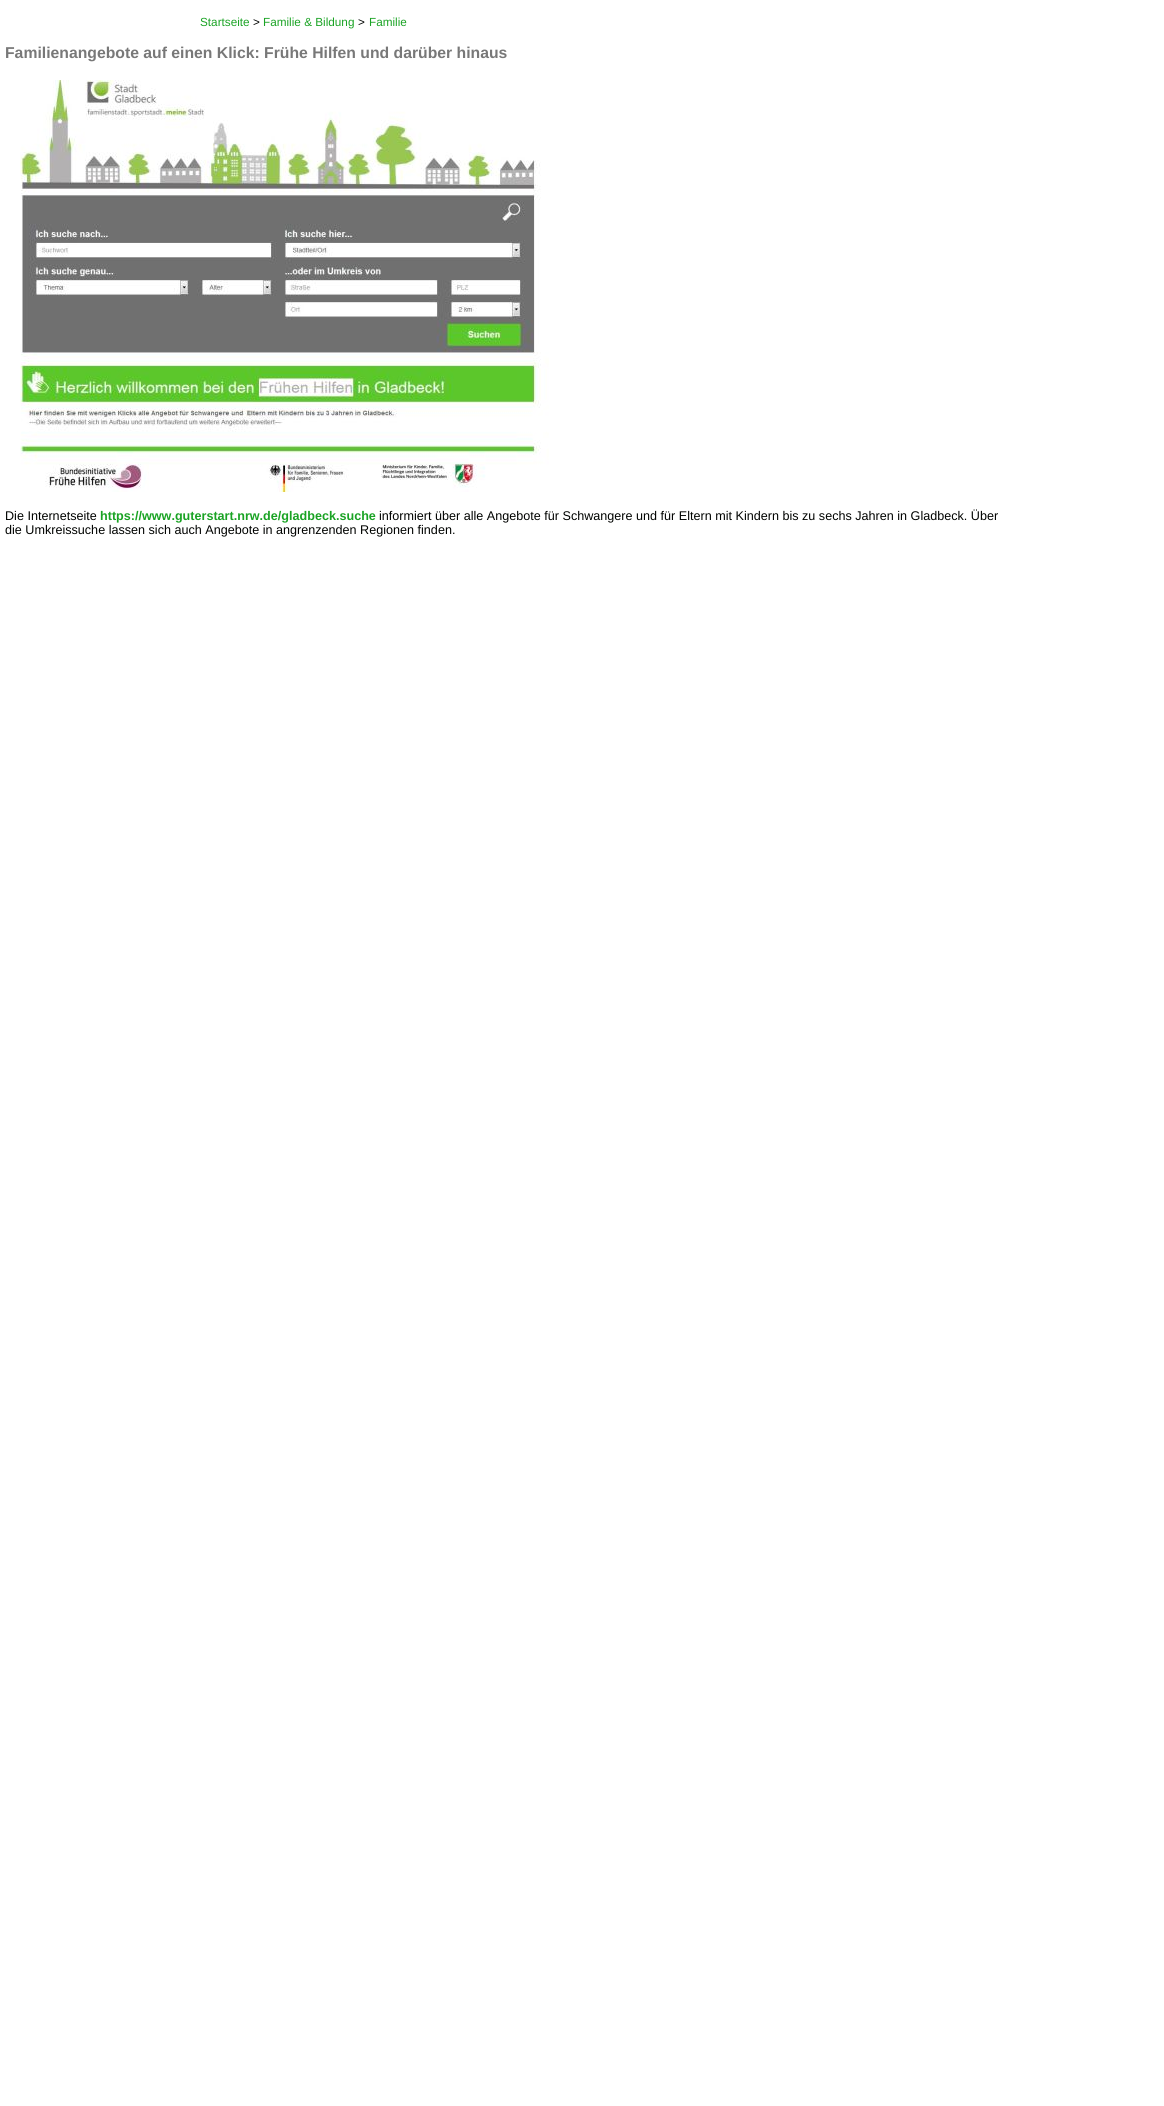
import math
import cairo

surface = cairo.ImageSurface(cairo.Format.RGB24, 1164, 2106)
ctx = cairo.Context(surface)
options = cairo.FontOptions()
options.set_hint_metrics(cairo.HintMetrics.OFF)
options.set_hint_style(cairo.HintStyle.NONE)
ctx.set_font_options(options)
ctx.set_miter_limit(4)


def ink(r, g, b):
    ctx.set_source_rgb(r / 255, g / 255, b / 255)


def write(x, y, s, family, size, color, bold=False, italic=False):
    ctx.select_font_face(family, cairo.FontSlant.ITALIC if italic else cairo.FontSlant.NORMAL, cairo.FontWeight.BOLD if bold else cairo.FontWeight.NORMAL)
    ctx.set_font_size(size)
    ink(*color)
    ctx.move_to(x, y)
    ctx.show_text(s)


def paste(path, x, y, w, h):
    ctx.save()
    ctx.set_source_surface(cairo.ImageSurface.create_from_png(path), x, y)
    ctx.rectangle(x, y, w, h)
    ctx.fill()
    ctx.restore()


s1 = dict(family="Liberation Sans", size=11.75, color=(26, 163, 36))
s2 = dict(family="Liberation Sans", size=11.75, color=(0, 2, 0))
s3 = dict(family="Liberation Sans", size=15.75, color=(120, 120, 120), bold=True)
s4 = dict(family="Liberation Sans", size=12.6, color=(0, 2, 0))
s5 = dict(family="Liberation Sans", size=12.6, color=(26, 163, 36), bold=True)

ink(255, 255, 255)
ctx.paint()
write(200, 26, "Startseite", **s1)
write(253, 26, ">", **s2)
write(263, 26, "Familie & Bildung", **s1)
write(358, 26, ">", **s2)
write(369, 26, "Familie", **s1)
write(5, 58, "Familienangebote auf einen Klick: Frühe Hilfen und darüber hinaus", **s3)
paste("pic1.png", 20, 80, 529, 412)
write(5, 520, "Die Internetseite", **s4)
write(100, 520, "https://www.guterstart.nrw.de/gladbeck.suche", **s5)
write(379, 520, "informiert über alle Angebote für Schwangere und für Eltern mit Kindern bis zu sechs Jahren in Gladbeck. Über", **s4)
write(5, 534, "die Umkreissuche lassen sich auch Angebote in angrenzenden Regionen finden.", **s4)
surface.write_to_png("screenshot.png")
